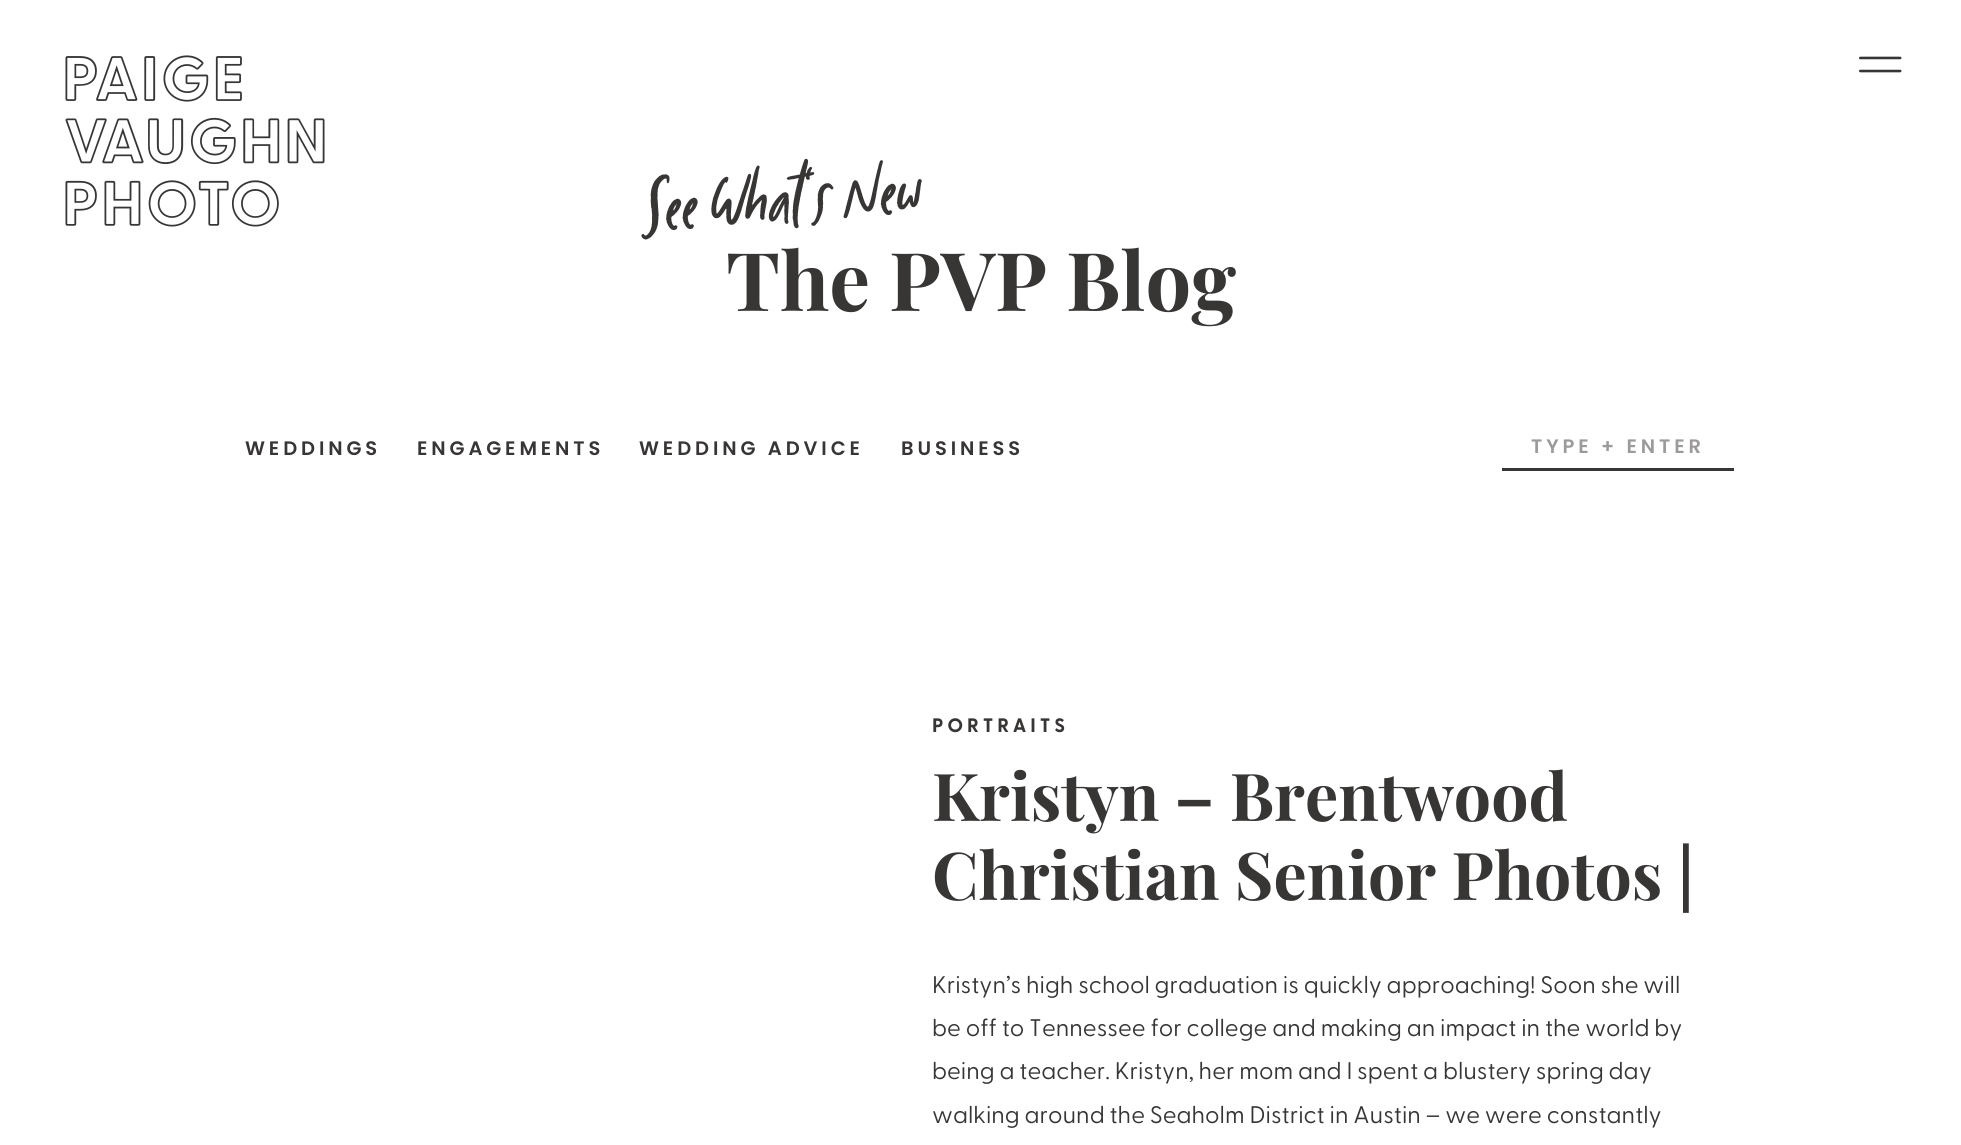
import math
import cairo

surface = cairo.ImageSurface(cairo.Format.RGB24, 1961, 1145)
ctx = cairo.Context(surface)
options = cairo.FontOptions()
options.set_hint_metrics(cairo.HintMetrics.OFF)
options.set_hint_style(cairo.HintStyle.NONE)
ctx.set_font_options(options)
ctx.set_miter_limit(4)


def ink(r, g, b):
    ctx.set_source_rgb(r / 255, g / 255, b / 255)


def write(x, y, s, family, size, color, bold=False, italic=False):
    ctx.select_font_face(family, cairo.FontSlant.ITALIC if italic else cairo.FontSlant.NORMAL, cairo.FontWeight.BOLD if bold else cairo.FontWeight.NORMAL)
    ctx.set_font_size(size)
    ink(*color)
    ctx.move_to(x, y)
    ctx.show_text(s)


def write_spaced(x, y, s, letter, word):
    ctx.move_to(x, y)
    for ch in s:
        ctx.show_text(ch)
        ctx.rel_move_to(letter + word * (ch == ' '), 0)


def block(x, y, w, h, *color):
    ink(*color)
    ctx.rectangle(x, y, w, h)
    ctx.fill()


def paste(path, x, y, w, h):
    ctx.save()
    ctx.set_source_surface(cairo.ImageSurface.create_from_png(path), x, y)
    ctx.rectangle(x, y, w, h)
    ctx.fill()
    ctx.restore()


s1 = dict(family="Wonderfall", size=66, color=(56, 53, 53))
s2 = dict(family="Playfair Display", size=81, color=(56, 53, 53), bold=True)
s3 = dict(family="Playfair Display", size=66, color=(56, 53, 53), bold=True)
s4 = dict(family="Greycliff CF", size=24, color=(56, 53, 53))

ink(255, 255, 255)
ctx.paint()
paste("pic1.png", 65, 55, 260, 172)
paste("pic2.png", 1859, 56, 43, 17)
ctx.save()
ctx.translate(643, 231)
ctx.rotate(-4 * math.pi / 180)
write(0, 0, "See What's New", **s1)
ctx.restore()
write(726, 311, "The PVP Blog", **s2)
ctx.select_font_face("Poppins SemiBold")
ctx.set_font_size(19.5)
write_spaced(245, 455, "WEDDINGS", 3.9, 0)
write_spaced(417, 455, "ENGAGEMENTS", 3.9, 0)
write_spaced(639, 455, "WEDDING ADVICE", 3.9, 0)
write_spaced(901, 455, "BUSINESS", 3.9, 0)
ink(156, 154, 154)
write_spaced(1531, 453, "TYPE + ENTER", 3.9, 0)
block(1502, 468, 232, 3, 56, 53, 53)
ctx.select_font_face("Greycliff CF", cairo.FontSlant.NORMAL, cairo.FontWeight.BOLD)
write_spaced(932, 732, "PORTRAITS", 3.9, 0)
write(932, 821, "Kristyn – Brentwood", **s3)
write(932, 900, "Christian Senior Photos |", **s3)
write(932, 993, "Kristyn’s high school graduation is quickly approaching! Soon she will", **s4)
write(932, 1036, "be off to Tennessee for college and making an impact in the world by", **s4)
write(932, 1079, "being a teacher. Kristyn, her mom and I spent a blustery spring day", **s4)
write(932, 1123, "walking around the Seaholm District in Austin – we were constantly", **s4)
surface.write_to_png("screenshot.png")
